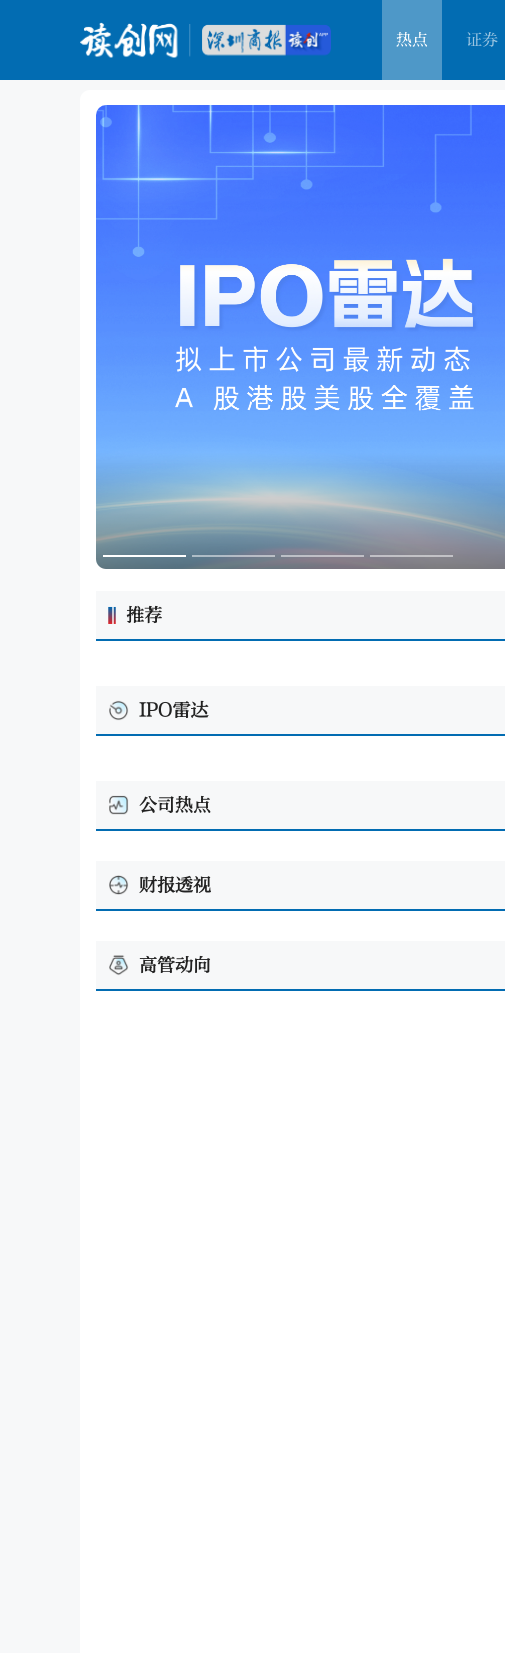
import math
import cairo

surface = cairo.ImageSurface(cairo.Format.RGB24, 505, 1653)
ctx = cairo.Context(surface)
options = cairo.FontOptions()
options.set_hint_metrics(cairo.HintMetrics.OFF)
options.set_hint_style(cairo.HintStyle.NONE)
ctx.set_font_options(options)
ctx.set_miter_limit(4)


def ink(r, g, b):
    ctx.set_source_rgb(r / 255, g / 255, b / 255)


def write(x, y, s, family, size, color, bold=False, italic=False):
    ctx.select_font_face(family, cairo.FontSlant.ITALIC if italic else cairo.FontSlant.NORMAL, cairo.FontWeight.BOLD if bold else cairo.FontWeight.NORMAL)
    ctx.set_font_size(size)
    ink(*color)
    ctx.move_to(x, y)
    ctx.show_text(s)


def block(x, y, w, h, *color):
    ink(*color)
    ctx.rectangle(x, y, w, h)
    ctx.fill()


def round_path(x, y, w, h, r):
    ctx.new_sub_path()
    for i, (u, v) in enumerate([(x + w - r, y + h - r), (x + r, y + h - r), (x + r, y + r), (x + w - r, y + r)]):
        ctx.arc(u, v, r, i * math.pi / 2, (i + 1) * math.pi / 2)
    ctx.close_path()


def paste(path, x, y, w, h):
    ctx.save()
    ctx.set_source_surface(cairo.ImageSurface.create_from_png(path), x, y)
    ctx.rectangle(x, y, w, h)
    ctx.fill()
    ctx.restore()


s1 = dict(family="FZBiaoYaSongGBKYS", size=16, color=(255, 255, 255))
s2 = dict(family="FZBiaoYaSongGBKYS", size=16, color=(154, 196, 224))
s3 = dict(family="FZBiaoYaSongGBKYS", size=18, color=(34, 34, 34), bold=True)

ink(247, 248, 249)
ctx.paint()
block(0, 0, 505, 80, 2, 108, 178)
paste("pic1.png", 80, 22, 251, 36)
block(382, 0, 60, 80, 78, 152, 200)
write(396, 45, "热点", **s1)
write(466, 45, "证券", **s2)
ink(255, 255, 255)
round_path(80, 90, 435, 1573, 10)
ctx.fill()
paste("pic2.png", 96, 105, 409, 464)
gradient = cairo.LinearGradient(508, 453, 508, 569)
gradient.add_color_stop_rgba(0, 0, 0, 0, 0)
gradient.add_color_stop_rgba(1, 0, 0, 0, 0.5)
ctx.set_source(gradient)
ctx.new_path()
ctx.move_to(96, 453)
ctx.line_to(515, 453)
ctx.line_to(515, 559)
ctx.curve_to(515, 564.5, 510.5, 569, 505, 569)
ctx.line_to(106, 569)
ctx.curve_to(100.5, 569, 96, 564.5, 96, 559)
ctx.close_path()
ctx.fill()
block(103, 555, 83, 2, 255, 255, 255)
ctx.set_source_rgba(1, 1, 1, 0.5)
ctx.rectangle(192, 555, 83, 2)
ctx.fill()
ctx.rectangle(281, 555, 83, 2)
ctx.fill()
ctx.rectangle(370, 555, 83, 2)
ctx.fill()
block(96, 591, 409, 48, 247, 248, 249)
block(96, 639, 409, 2, 2, 108, 178)
paste("pic3.png", 108, 606, 8, 18)
write(126, 621, "推荐", **s3)
block(96, 686, 409, 48, 247, 248, 249)
block(96, 734, 409, 2, 2, 108, 178)
paste("pic4.png", 109, 700, 20, 21)
write(139, 716, "IPO雷达", **s3)
block(96, 781, 409, 48, 247, 248, 249)
block(96, 829, 409, 2, 2, 108, 178)
paste("pic5.png", 109, 795, 20, 20)
write(139, 811, "公司热点", **s3)
block(96, 861, 409, 48, 247, 248, 249)
block(96, 909, 409, 2, 2, 108, 178)
paste("pic6.png", 109, 875, 20, 20)
write(139, 891, "财报透视", **s3)
block(96, 941, 409, 48, 247, 248, 249)
block(96, 989, 409, 2, 2, 108, 178)
paste("pic7.png", 109, 955, 20, 21)
write(139, 971, "高管动向", **s3)
surface.write_to_png("screenshot.png")
